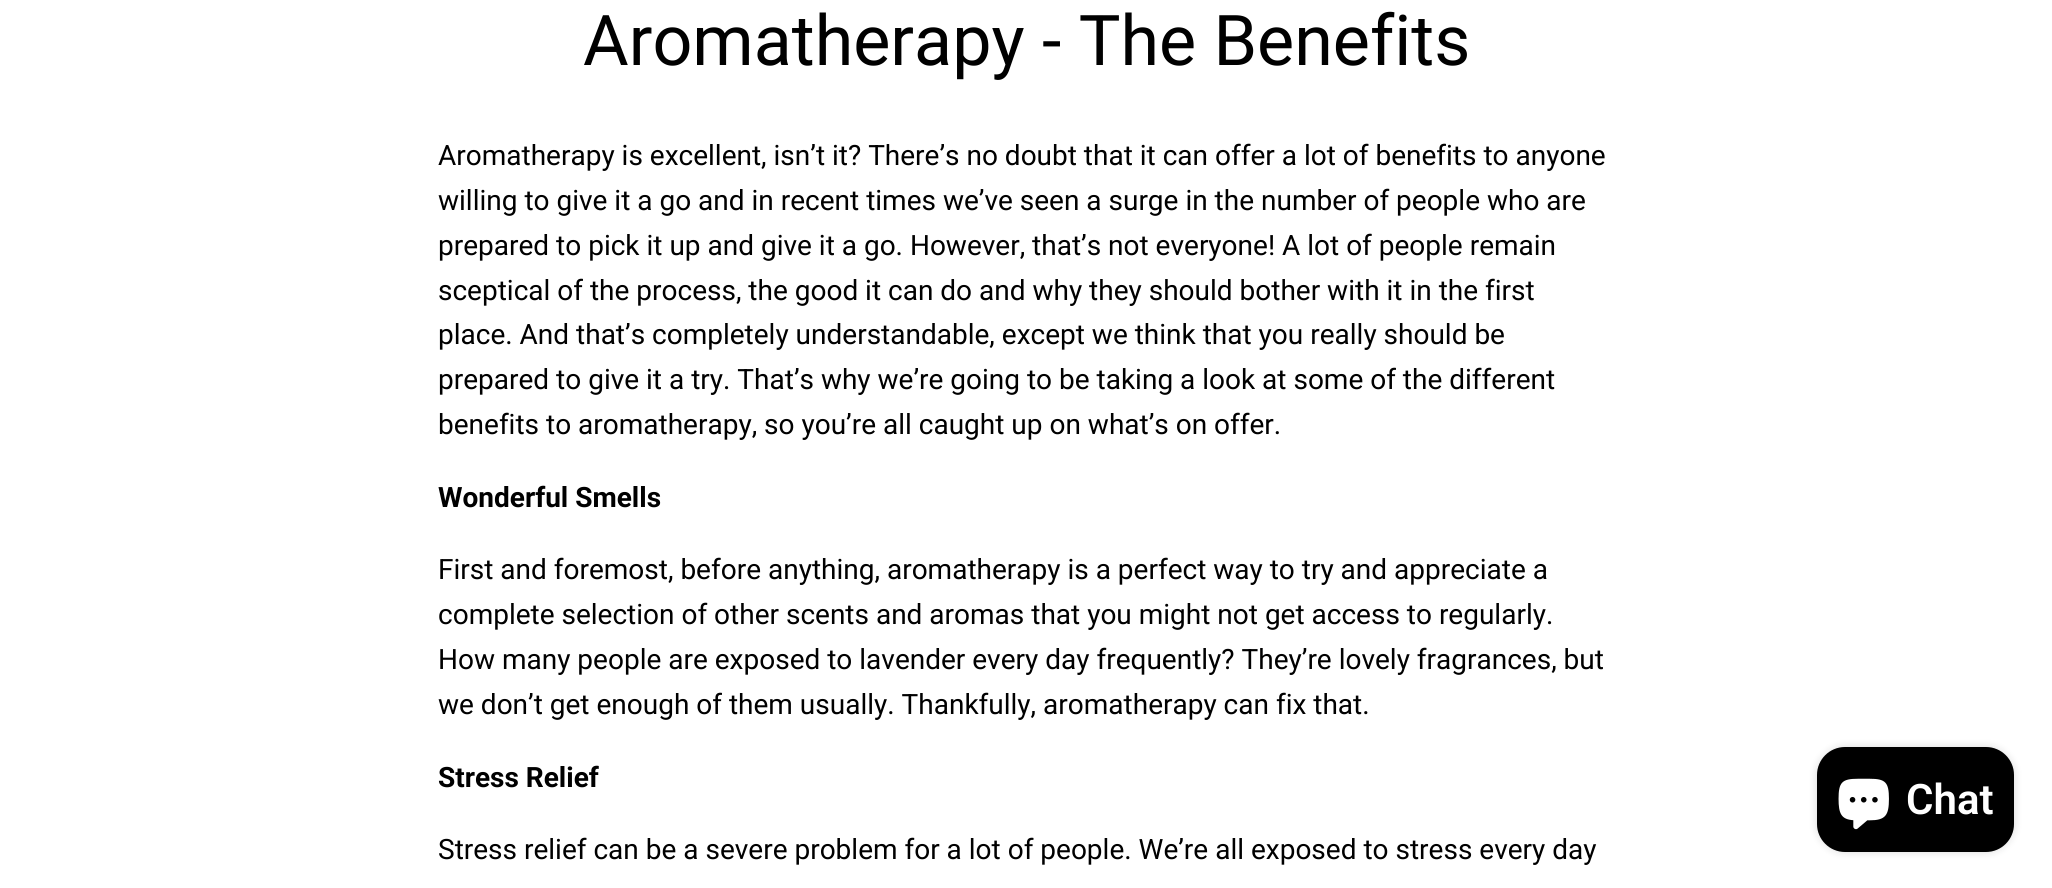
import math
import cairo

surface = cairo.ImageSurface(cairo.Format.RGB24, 2052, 888)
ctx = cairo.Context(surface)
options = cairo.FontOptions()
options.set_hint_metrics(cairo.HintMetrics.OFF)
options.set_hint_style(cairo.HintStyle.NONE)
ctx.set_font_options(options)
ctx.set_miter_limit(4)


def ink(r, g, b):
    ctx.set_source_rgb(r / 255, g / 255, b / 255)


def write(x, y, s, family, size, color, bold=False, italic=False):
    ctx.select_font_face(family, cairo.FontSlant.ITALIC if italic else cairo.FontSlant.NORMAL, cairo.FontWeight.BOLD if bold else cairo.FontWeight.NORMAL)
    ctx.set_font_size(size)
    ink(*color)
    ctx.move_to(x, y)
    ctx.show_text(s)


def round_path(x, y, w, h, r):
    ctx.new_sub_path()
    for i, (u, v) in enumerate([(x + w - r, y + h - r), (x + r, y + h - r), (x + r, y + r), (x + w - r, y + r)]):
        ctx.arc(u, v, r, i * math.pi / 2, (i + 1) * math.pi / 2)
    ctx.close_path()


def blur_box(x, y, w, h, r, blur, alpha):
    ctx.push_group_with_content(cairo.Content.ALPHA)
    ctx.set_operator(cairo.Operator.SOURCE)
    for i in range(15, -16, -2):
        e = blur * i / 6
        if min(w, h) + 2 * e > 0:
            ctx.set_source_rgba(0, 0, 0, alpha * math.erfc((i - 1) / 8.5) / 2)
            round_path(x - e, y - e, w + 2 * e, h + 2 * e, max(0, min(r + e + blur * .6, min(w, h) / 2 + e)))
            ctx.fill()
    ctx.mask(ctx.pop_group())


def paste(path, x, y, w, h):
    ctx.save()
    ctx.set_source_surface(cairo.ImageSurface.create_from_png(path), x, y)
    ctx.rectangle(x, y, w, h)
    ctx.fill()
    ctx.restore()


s1 = dict(family="Roboto", size=70, color=(0, 0, 0))
s2 = dict(family="Roboto", size=28, color=(0, 0, 0))
s3 = dict(family="Roboto", size=28, color=(0, 0, 0), bold=True)
s4 = dict(family="Roboto SemiBold", size=42, color=(255, 255, 255))

ink(255, 255, 255)
ctx.paint()
write(583, 65, "Aromatherapy - The Benefits", **s1)
write(438, 165, "Aromatherapy is excellent, isn’t it? There’s no doubt that it can offer a lot of benefits to anyone", **s2)
write(438, 210, "willing to give it a go and in recent times we’ve seen a surge in the number of people who are", **s2)
write(438, 255, "prepared to pick it up and give it a go. However, that’s not everyone! A lot of people remain", **s2)
write(438, 300, "sceptical of the process, the good it can do and why they should bother with it in the first", **s2)
write(438, 344, "place. And that’s completely understandable, except we think that you really should be", **s2)
write(438, 389, "prepared to give it a try. That’s why we’re going to be taking a look at some of the different", **s2)
write(438, 434, "benefits to aromatherapy, so you’re all caught up on what’s on offer.", **s2)
write(438, 507, "Wonderful Smells", **s3)
write(438, 579, "First and foremost, before anything, aromatherapy is a perfect way to try and appreciate a", **s2)
write(438, 624, "complete selection of other scents and aromas that you might not get access to regularly.", **s2)
write(438, 669, "How many people are exposed to lavender every day frequently? They’re lovely fragrances, but", **s2)
write(438, 714, "we don’t get enough of them usually. Thankfully, aromatherapy can fix that.", **s2)
write(438, 787, "Stress Relief", **s3)
write(438, 859, "Stress relief can be a severe problem for a lot of people. We’re all exposed to stress every day", **s2)
ink(0, 0, 0)
blur_box(1817, 747, 197, 105, 28, 4.5, 0.15)
ink(0, 0, 0)
round_path(1817, 747, 197, 105, 28)
ctx.fill()
paste("pic1.png", 1838, 778, 51, 52)
write(1906, 814, "Chat", **s4)
surface.write_to_png("screenshot.png")
